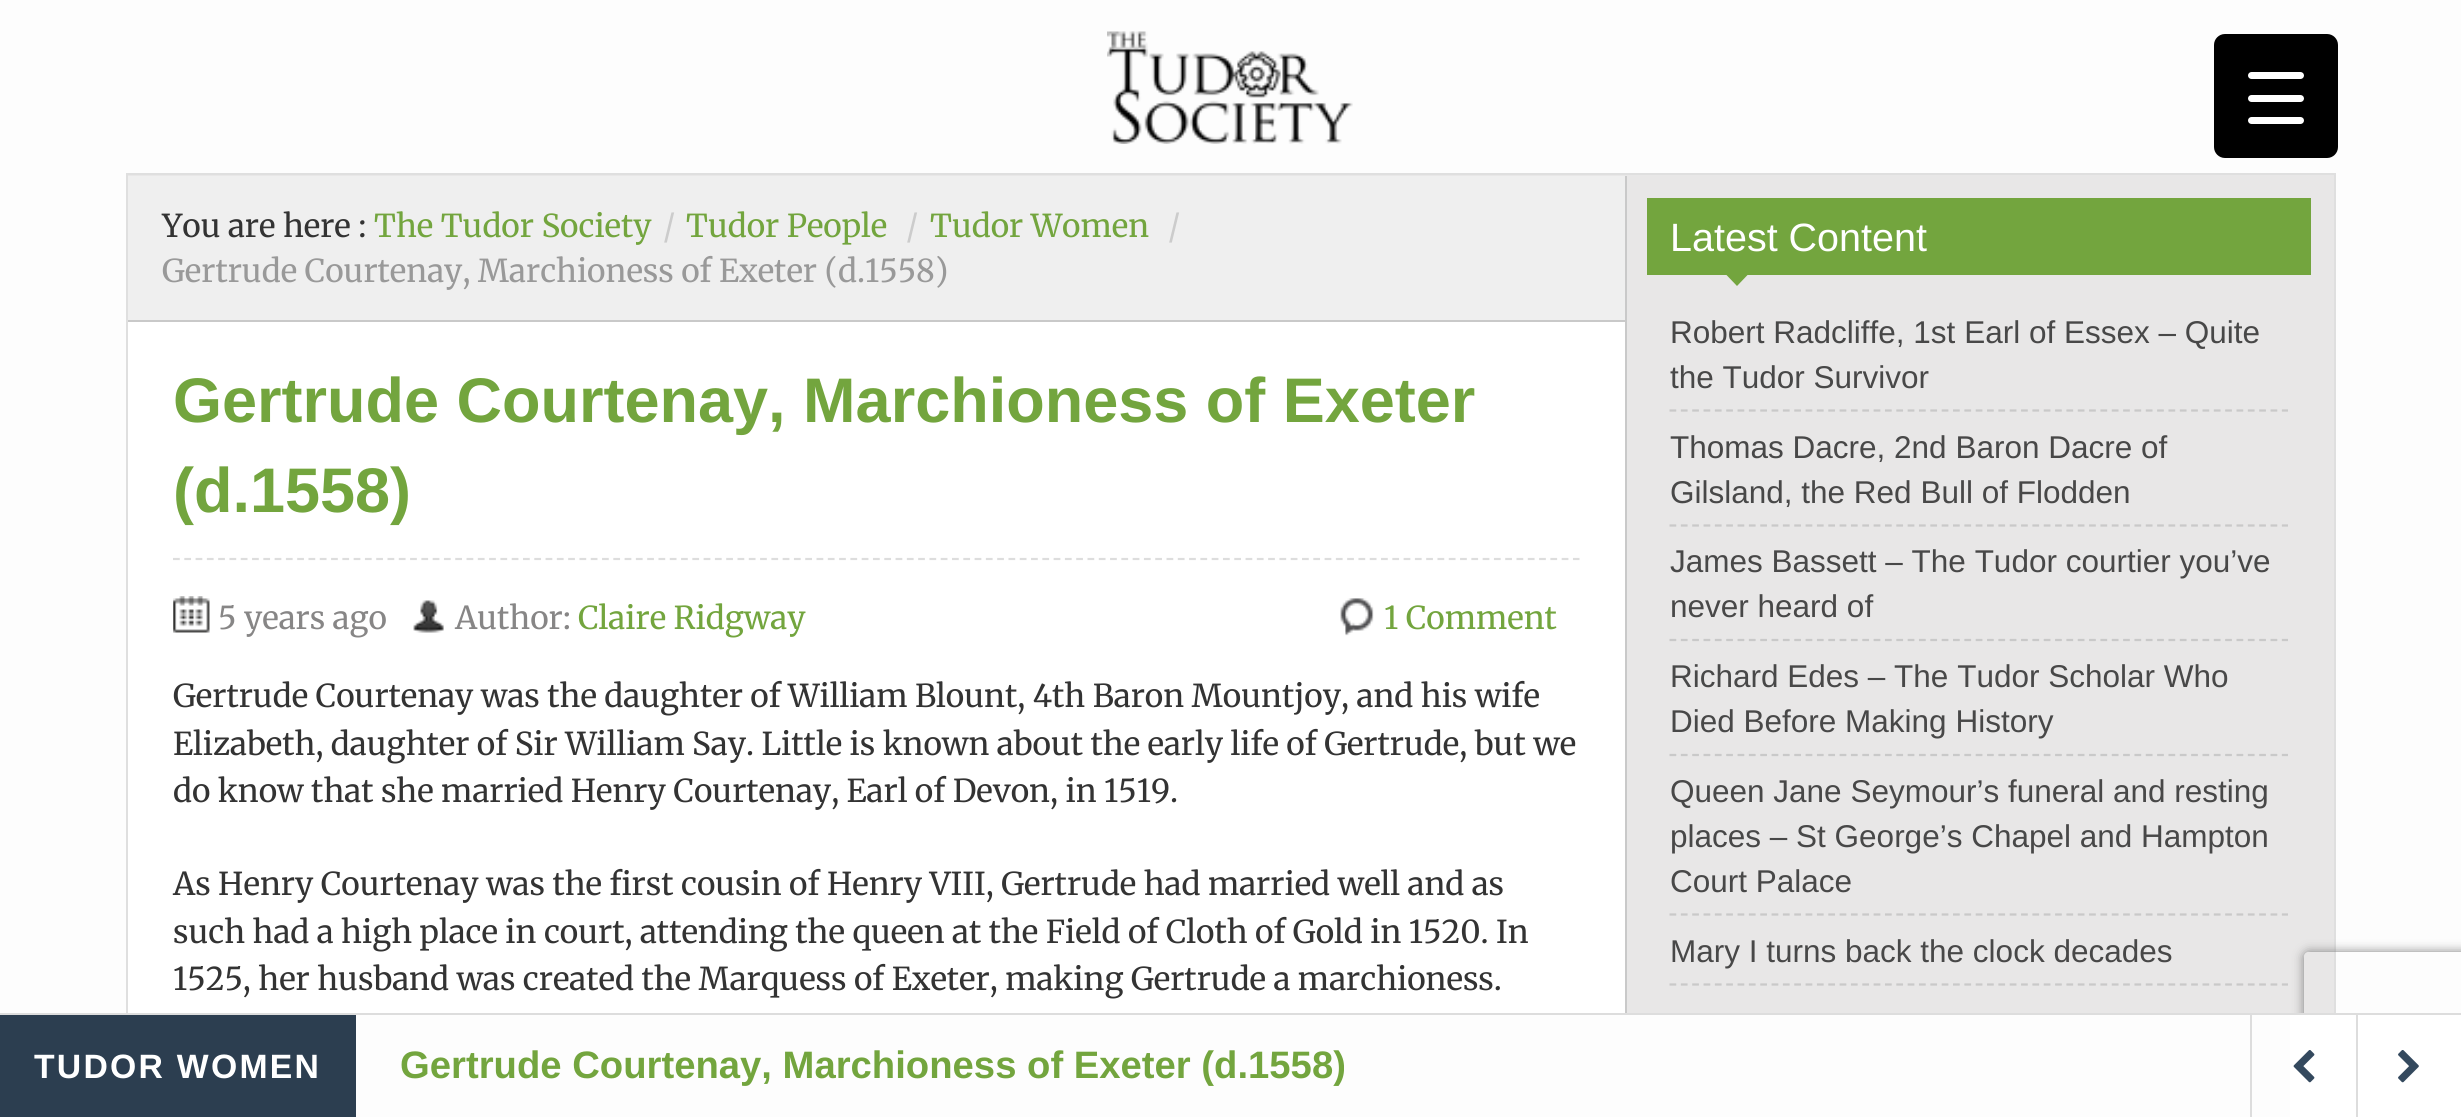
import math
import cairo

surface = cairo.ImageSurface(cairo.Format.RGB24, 2461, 1117)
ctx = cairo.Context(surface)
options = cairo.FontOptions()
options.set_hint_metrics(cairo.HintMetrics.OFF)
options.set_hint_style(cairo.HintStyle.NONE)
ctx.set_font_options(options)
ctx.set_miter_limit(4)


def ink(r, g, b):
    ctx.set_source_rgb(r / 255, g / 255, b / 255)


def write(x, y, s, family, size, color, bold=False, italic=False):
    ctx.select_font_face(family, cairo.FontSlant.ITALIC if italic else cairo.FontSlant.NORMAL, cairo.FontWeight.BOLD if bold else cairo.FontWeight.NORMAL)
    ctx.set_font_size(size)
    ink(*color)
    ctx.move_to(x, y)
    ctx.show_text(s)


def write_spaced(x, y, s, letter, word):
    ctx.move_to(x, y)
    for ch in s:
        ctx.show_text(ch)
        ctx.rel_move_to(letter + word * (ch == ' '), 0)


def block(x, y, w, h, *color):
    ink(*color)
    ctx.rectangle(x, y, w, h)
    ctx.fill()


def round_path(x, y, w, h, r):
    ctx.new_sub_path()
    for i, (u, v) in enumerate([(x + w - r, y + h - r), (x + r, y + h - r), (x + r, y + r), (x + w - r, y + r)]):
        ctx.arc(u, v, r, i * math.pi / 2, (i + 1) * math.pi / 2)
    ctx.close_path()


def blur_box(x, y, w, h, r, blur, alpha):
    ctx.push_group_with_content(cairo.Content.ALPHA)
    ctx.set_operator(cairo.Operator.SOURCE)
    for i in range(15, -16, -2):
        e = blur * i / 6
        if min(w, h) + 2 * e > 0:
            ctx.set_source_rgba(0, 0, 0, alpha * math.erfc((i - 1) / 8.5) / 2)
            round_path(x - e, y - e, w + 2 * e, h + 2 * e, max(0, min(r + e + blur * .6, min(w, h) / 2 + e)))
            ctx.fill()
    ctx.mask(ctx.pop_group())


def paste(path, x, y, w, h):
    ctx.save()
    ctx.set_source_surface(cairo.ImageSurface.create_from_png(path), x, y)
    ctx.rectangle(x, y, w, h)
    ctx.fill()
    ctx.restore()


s1 = dict(family="Merriweather", size=31.5, color=(51, 51, 51))
s2 = dict(family="Merriweather", size=31.5, color=(115, 165, 62))
s3 = dict(family="Merriweather", size=31.5, color=(204, 204, 204))
s4 = dict(family="Merriweather", size=31.5, color=(153, 153, 153))
s5 = dict(family="Liberation Sans", size=63, color=(115, 165, 62), bold=True)
s6 = dict(family="Merriweather", size=31.5, color=(135, 134, 134))
s7 = dict(family="Liberation Sans", size=39.5, color=(255, 255, 255))
s8 = dict(family="Liberation Sans", size=31.5, color=(72, 72, 72))
s9 = dict(family="Liberation Sans", size=38.25, color=(115, 165, 62), bold=True)

ink(253, 253, 253)
ctx.paint()
paste("pic1.png", 1107, 31, 246, 113)
ink(0, 0, 0)
round_path(2214, 34, 124, 124, 11)
ctx.fill()
ink(255, 255, 255)
round_path(2248, 95, 56, 7, 3.5)
ctx.fill()
round_path(2248, 72, 56, 7, 3.5)
ctx.fill()
round_path(2248, 117, 56, 7, 3.5)
ctx.fill()
block(128, 175, 2206, 838, 232, 231, 231)
ctx.rectangle(127, 174, 2208, 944)
ink(223, 223, 223)
ctx.stroke()
block(128, 322, 1497, 691, 255, 255, 255)
block(1625, 176, 2, 837, 201, 201, 201)
block(128, 176, 1497, 144, 239, 239, 239)
block(128, 320, 1497, 2, 201, 201, 201)
write(162, 237, "You are here :", **s1)
write(374, 237, "The Tudor Society", **s2)
write(663, 237, "/", **s3)
write(686, 237, "Tudor People", **s2)
write(906, 237, "/", **s3)
write(930, 237, "Tudor Women", **s2)
write(1168, 237, "/", **s3)
write(162, 282, "Gertrude Courtenay, Marchioness of Exeter (d.1558)", **s4)
ctx.new_path()
ctx.move_to(173, 559)
ctx.line_to(1579.5, 559)
ink(221, 221, 221)
ctx.set_line_width(2.2)
ctx.set_dash([6.75, 4.54])
ctx.stroke()
write(173, 422, "Gertrude Courtenay, Marchioness of Exeter", **s5)
write(173, 512, "(d.1558)", **s5)
paste("pic2.png", 173, 596, 37, 37)
write(218, 629, "5 years ago", **s6)
paste("pic3.png", 413, 600, 31, 33)
write(455, 629, "Author:", **s6)
write(578, 629, "Claire Ridgway", **s2)
paste("pic4.png", 1340, 598, 34, 38)
write(1384, 629, "1 Comment", **s2)
write(173, 707, "Gertrude Courtenay was the daughter of William Blount, 4th Baron Mountjoy, and his wife", **s1)
write(173, 755, "Elizabeth, daughter of Sir William Say. Little is known about the early life of Gertrude, but we", **s1)
write(173, 802, "do know that she married Henry Courtenay, Earl of Devon, in 1519.", **s1)
write(173, 895, "As Henry Courtenay was the first cousin of Henry VIII, Gertrude had married well and as", **s1)
write(173, 943, "such had a high place in court, attending the queen at the Field of Cloth of Gold in 1520. In", **s1)
write(173, 990, "1525, her husband was created the Marquess of Exeter, making Gertrude a marchioness.", **s1)
block(1647, 198, 664, 77, 115, 165, 62)
write(1670, 251, "Latest Content", **s7)
ink(115, 165, 62)
ctx.new_path()
ctx.move_to(1726, 274.5)
ctx.line_to(1748, 274.5)
ctx.line_to(1737, 286)
ctx.close_path()
ctx.fill()
ctx.new_path()
ctx.move_to(1669.5, 410.5)
ctx.line_to(2288, 410.5)
ink(201, 201, 201)
ctx.set_dash([6.75, 4.59])
ctx.stroke()
write(1670, 343, "Robert Radcliffe, 1st Earl of Essex – Quite", **s8)
write(1670, 388, "the Tudor Survivor", **s8)
ctx.new_path()
ctx.move_to(1669.5, 525.5)
ctx.line_to(2288, 525.5)
ink(201, 201, 201)
ctx.stroke()
write(1670, 458, "Thomas Dacre, 2nd Baron Dacre of", **s8)
write(1670, 503, "Gilsland, the Red Bull of Flodden", **s8)
ctx.new_path()
ctx.move_to(1669.5, 640)
ctx.line_to(2288, 640)
ink(201, 201, 201)
ctx.stroke()
write(1670, 572, "James Bassett – The Tudor courtier you’ve", **s8)
write(1670, 617, "never heard of", **s8)
ctx.new_path()
ctx.move_to(1669.5, 755)
ctx.line_to(2288, 755)
ink(201, 201, 201)
ctx.stroke()
write(1670, 687, "Richard Edes – The Tudor Scholar Who", **s8)
write(1670, 732, "Died Before Making History", **s8)
ctx.new_path()
ctx.move_to(1669.5, 914.5)
ctx.line_to(2288, 914.5)
ink(201, 201, 201)
ctx.stroke()
write(1670, 802, "Queen Jane Seymour’s funeral and resting", **s8)
write(1670, 847, "places – St George’s Chapel and Hampton", **s8)
write(1670, 892, "Court Palace", **s8)
ctx.new_path()
ctx.move_to(1669.5, 984.5)
ctx.line_to(2288, 984.5)
ink(201, 201, 201)
ctx.stroke()
write(1670, 962, "Mary I turns back the clock decades", **s8)
ctx.save()
ctx.set_fill_rule(cairo.FillRule.EVEN_ODD)
ctx.new_path()
ctx.move_to(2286, 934)
ctx.line_to(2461, 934)
ctx.line_to(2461, 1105)
ctx.line_to(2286, 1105)
ctx.close_path()
ctx.move_to(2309, 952)
ctx.line_to(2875, 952)
ctx.curve_to(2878, 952, 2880, 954, 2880, 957)
ctx.line_to(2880, 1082)
ctx.curve_to(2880, 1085, 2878, 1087, 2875, 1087)
ctx.line_to(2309, 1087)
ctx.curve_to(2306, 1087, 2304, 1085, 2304, 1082)
ctx.line_to(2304, 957)
ctx.curve_to(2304, 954, 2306, 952, 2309, 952)
ctx.close_path()
ctx.clip()
ink(128, 128, 128)
blur_box(2304, 952, 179, 135, 5, 5.5, 1)
ctx.restore()
block(2290, 1015, 171, 102, 255, 255, 255)
block(0, 1013, 2461, 2, 221, 221, 221)
block(0, 1015, 356, 102, 44, 62, 80)
ctx.select_font_face("Liberation Sans", cairo.FontSlant.NORMAL, cairo.FontWeight.BOLD)
ctx.set_font_size(33.75)
ink(255, 255, 255)
write_spaced(34, 1078, "TUDOR WOMEN", 2.25, 0)
write(400, 1078, "Gertrude Courtenay, Marchioness of Exeter (d.1558)", **s9)
block(2250, 1015, 2, 102, 221, 221, 221)
paste("pic5.png", 2293, 1050, 22, 33)
block(2356, 1015, 2, 102, 221, 221, 221)
paste("pic6.png", 2398, 1050, 21, 33)
surface.write_to_png("screenshot.png")
